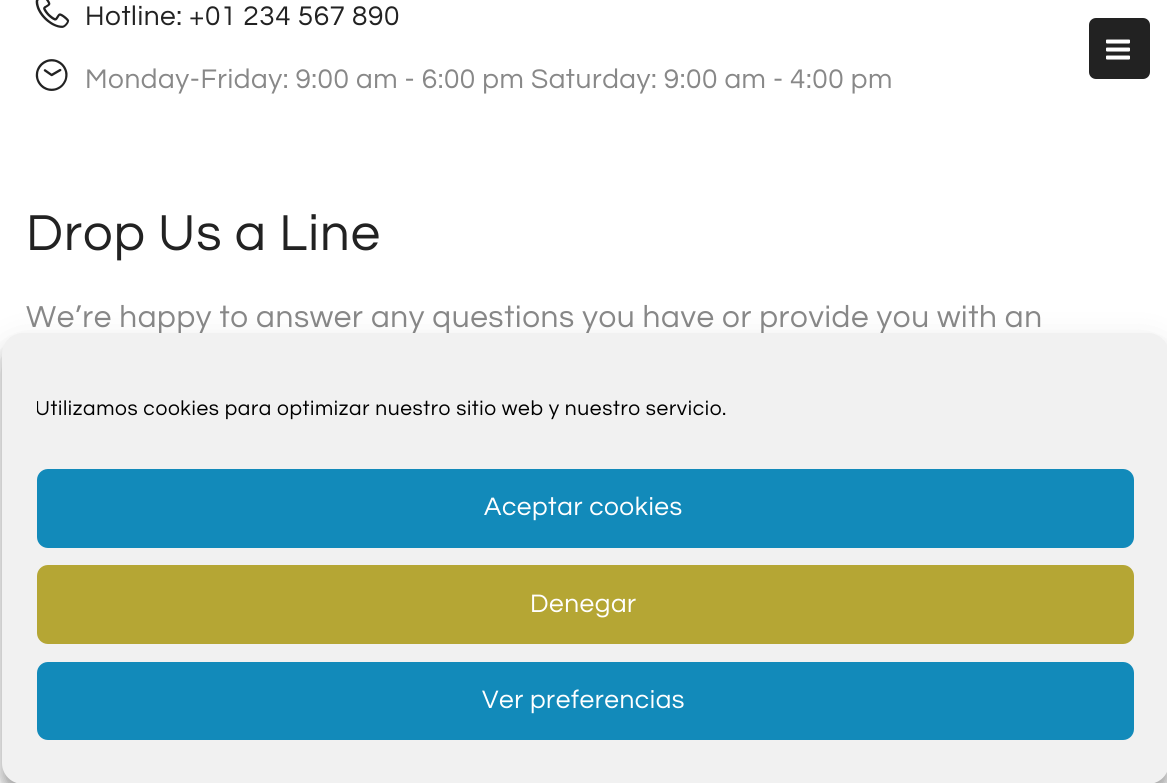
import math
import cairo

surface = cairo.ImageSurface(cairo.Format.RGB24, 1167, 783)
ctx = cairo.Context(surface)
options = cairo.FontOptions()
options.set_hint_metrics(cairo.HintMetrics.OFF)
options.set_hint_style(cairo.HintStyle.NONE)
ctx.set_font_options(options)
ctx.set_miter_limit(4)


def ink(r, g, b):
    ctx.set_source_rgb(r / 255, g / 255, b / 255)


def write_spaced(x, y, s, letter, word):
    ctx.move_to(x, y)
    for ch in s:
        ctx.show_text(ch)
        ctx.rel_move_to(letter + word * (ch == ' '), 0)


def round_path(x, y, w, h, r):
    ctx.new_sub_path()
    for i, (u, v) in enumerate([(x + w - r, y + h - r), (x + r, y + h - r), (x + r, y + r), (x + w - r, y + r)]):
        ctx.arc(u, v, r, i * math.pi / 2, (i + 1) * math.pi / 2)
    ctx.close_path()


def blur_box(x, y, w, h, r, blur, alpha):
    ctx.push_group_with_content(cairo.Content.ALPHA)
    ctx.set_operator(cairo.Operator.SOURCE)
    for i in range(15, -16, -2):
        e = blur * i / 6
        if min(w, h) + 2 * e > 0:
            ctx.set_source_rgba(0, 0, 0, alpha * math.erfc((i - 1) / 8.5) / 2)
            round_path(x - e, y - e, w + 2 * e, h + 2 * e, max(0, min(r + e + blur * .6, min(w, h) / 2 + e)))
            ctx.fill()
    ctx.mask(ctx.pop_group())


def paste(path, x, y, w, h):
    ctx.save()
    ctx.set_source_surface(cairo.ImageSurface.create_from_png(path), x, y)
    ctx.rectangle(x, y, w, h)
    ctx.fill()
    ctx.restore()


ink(255, 255, 255)
ctx.paint()
paste("pic1.png", 35, 0, 35, 28)
ctx.select_font_face("Questrial")
ctx.set_font_size(28)
ink(34, 34, 34)
write_spaced(85, 25, "Hotline: +01 234 567 890", 0.55, 0)
paste("pic2.png", 35, 59, 33, 32)
ink(136, 136, 136)
write_spaced(85, 88, "Monday-Friday: 9:00 am - 6:00 pm Saturday: 9:00 am - 4:00 pm", 0.55, 0)
ctx.set_font_size(52.5)
ink(34, 34, 34)
write_spaced(26, 250, "Drop Us a Line", 1, 0)
ctx.set_font_size(31.5)
ink(136, 136, 136)
write_spaced(26, 327, "We’re happy to answer any questions you have or provide you with an", 0.63, 0)
ink(34, 34, 34)
round_path(1089, 18, 61, 61, 7)
ctx.fill()
paste("pic3.png", 1106, 39, 24, 21)
ink(0, 0, 0)
blur_box(2, 343, 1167, 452, 21, 5, 0.23)
blur_box(2, 350, 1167, 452, 21, 17.5, 0.19)
ink(241, 241, 241)
round_path(2, 333, 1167, 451, 21)
ctx.fill()
ctx.save()
ctx.rectangle(37, 394, 1097, 40)
ctx.clip()
ctx.set_font_size(21)
ink(0, 0, 0)
write_spaced(35, 415, "Utilizamos cookies para optimizar nuestro sitio web y nuestro servicio.", 0.63, 0)
ctx.restore()
ink(18, 138, 186)
round_path(38, 470, 1095, 77, 10)
ctx.fill_preserve()
ctx.stroke()
ctx.set_font_size(26.25)
ink(255, 255, 255)
write_spaced(484, 515, "Aceptar cookies", 0.55, 0)
ink(181, 166, 52)
round_path(38, 566, 1095, 77, 10)
ctx.fill_preserve()
ctx.stroke()
ink(255, 255, 255)
write_spaced(530, 612, "Denegar", 0.55, 0)
ink(18, 138, 186)
round_path(38, 663, 1095, 76, 10)
ctx.fill_preserve()
ctx.stroke()
ink(255, 255, 255)
write_spaced(482, 708, "Ver preferencias", 0.55, 0)
surface.write_to_png("screenshot.png")
